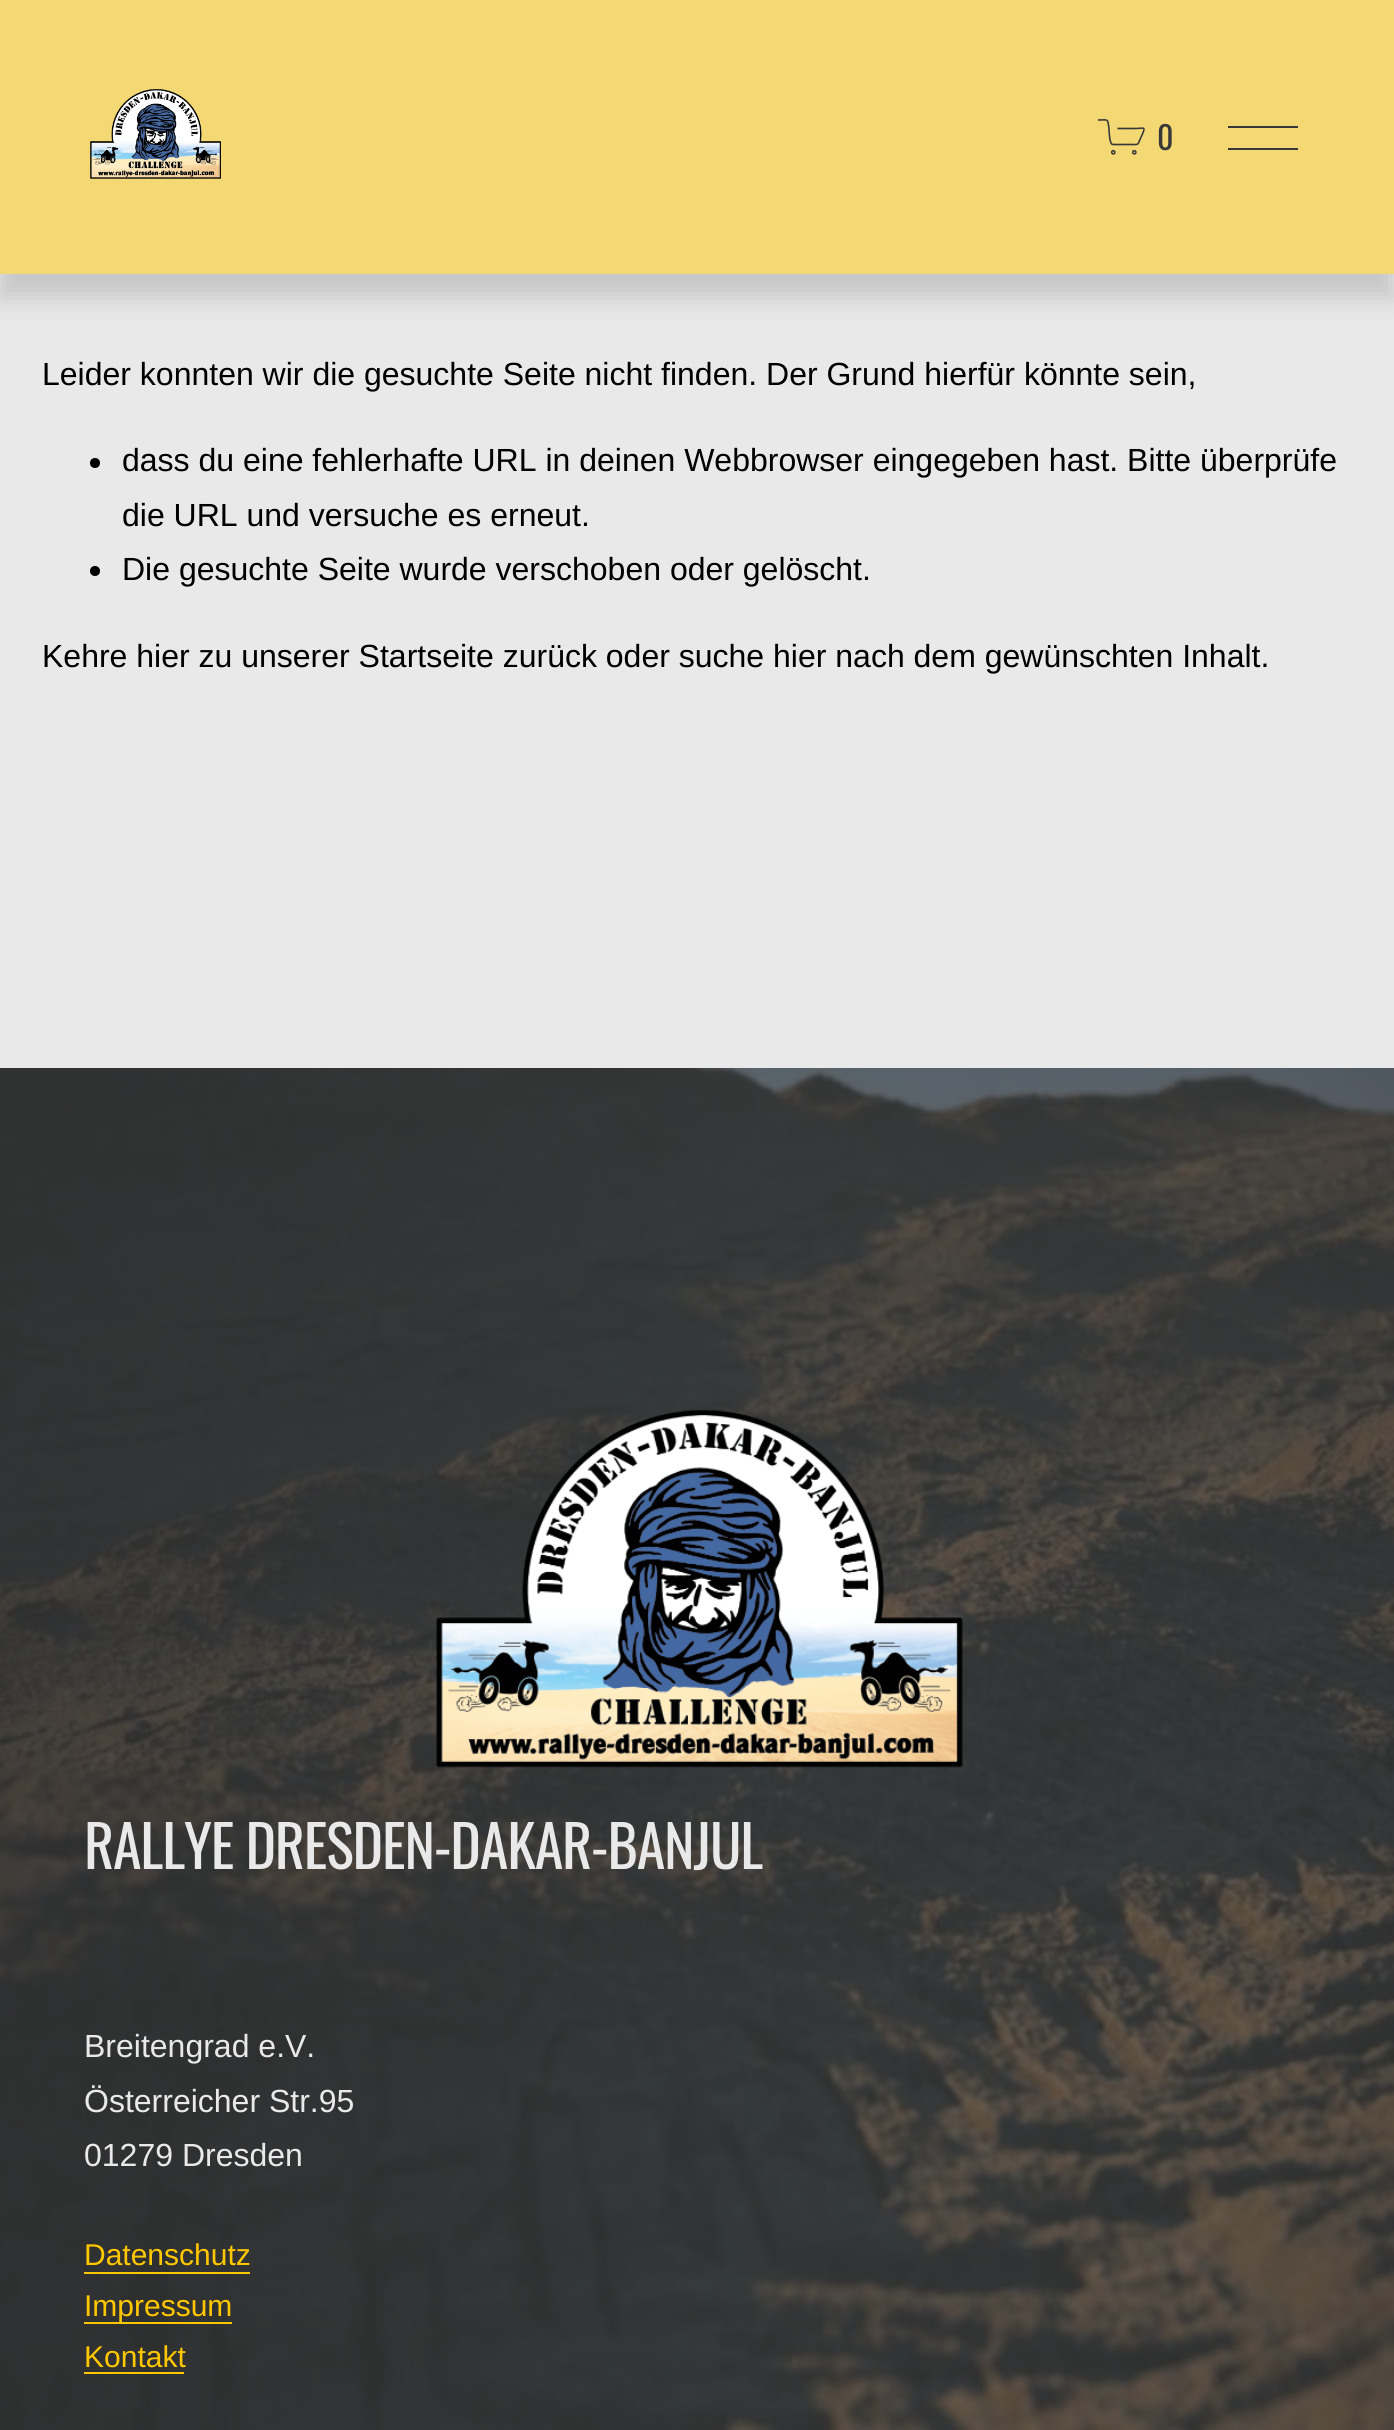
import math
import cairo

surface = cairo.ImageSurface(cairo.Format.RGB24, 1394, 2430)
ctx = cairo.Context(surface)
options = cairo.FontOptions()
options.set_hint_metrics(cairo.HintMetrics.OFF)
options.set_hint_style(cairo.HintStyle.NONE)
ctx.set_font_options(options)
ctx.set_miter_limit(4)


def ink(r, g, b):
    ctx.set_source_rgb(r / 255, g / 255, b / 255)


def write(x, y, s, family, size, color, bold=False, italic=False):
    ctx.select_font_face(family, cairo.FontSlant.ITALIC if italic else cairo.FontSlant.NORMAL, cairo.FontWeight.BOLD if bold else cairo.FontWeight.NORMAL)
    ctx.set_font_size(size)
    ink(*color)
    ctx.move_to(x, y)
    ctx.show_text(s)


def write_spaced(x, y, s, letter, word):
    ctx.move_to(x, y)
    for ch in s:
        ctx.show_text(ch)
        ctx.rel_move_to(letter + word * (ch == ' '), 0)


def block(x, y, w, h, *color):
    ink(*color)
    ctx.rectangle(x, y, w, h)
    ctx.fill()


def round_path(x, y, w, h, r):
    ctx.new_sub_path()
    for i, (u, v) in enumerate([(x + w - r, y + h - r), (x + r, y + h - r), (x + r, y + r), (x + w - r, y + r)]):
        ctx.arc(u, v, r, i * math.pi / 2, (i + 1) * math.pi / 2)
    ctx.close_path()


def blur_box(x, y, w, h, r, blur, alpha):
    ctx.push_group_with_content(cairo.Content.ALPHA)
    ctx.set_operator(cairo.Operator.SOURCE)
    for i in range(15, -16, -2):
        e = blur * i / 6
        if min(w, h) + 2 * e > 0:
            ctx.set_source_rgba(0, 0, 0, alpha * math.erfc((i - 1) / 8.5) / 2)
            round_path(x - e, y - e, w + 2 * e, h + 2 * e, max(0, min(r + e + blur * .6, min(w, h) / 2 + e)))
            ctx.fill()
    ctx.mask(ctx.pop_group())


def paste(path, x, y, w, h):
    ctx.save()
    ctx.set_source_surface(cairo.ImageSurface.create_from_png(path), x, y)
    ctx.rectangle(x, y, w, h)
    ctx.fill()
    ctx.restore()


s1 = dict(family="Arimo", size=32, color=(0, 0, 0))
s2 = dict(family="Arimo", size=32, color=(233, 233, 233))
s3 = dict(family="Arimo", size=30, color=(255, 199, 0))

ink(233, 233, 233)
ctx.paint()
ink(198, 198, 198)
blur_box(0, 24, 1394, 274, 0, 12, 1)
block(0, 0, 1394, 274, 244, 216, 116)
paste("pic1.png", 90, 89, 131, 90)
ctx.arc(1134.3, 152.3, 1.6, 0, 2 * math.pi)
ink(56, 56, 56)
ctx.set_line_width(1.6)
ctx.stroke()
ctx.arc(1113.3, 152.3, 1.6, 0, 2 * math.pi)
ctx.stroke()
ctx.new_path()
ctx.move_to(1098, 120)
ctx.curve_to(1108.5, 120, 1107.5, 118, 1109, 128.5)
ctx.curve_to(1109, 131, 1109.5, 144, 1112.5, 144.5)
ctx.line_to(1132.5, 144.5)
ctx.curve_to(1137.5, 144.5, 1138, 145, 1139.5, 140.5)
ctx.line_to(1142.5, 134)
ctx.curve_to(1145.5, 126, 1144.5, 128.5, 1134.5, 128.5)
ctx.line_to(1117.5, 128.5)
ctx.stroke()
ctx.select_font_face("Oswald")
ctx.set_font_size(32)
write_spaced(1157, 150, "0", -1, 0)
block(1228, 126, 70, 2, 56, 56, 56)
block(1228, 148, 70, 2, 56, 56, 56)
write(42, 385, "Leider konnten wir die gesuchte Seite nicht finden. Der Grund hierfür könnte sein,", **s1)
ctx.new_path()
ctx.arc(95, 463, 5, 0, 2 * math.pi)
ctx.fill()
write(122, 471, "dass du eine fehlerhafte URL in deinen Webbrowser eingegeben hast. Bitte überprüfe", **s1)
write(122, 526, "die URL und versuche es erneut.", **s1)
ctx.new_path()
ctx.arc(95, 571, 5, 0, 2 * math.pi)
ctx.fill()
write(122, 580, "Die gesuchte Seite wurde verschoben oder gelöscht.", **s1)
write(42, 667, "Kehre hier zu unserer Startseite zurück oder suche hier nach dem gewünschten Inhalt.", **s1)
paste("pic2.png", 0, 1068, 1394, 1362)
paste("pic3.png", 436, 1409, 527, 359)
ctx.select_font_face("Oswald")
ctx.set_font_size(58)
ink(233, 233, 233)
write_spaced(84, 1869, "RALLYE DRESDEN-DAKAR-BANJUL", -1.15, 0)
write(84, 2057, "Breitengrad e.V.", **s2)
write(84, 2112, "Österreicher Str.95", **s2)
write(84, 2166, "01279 Dresden", **s2)
write(84, 2265, "Datenschutz", **s3)
block(84, 2272, 166, 2, 255, 199, 0)
block(84, 2322, 148, 2, 255, 199, 0)
write(84, 2316, "Impressum", **s3)
write(84, 2367, "Kontakt", **s3)
block(84, 2372, 100, 2, 255, 199, 0)
surface.write_to_png("screenshot.png")
